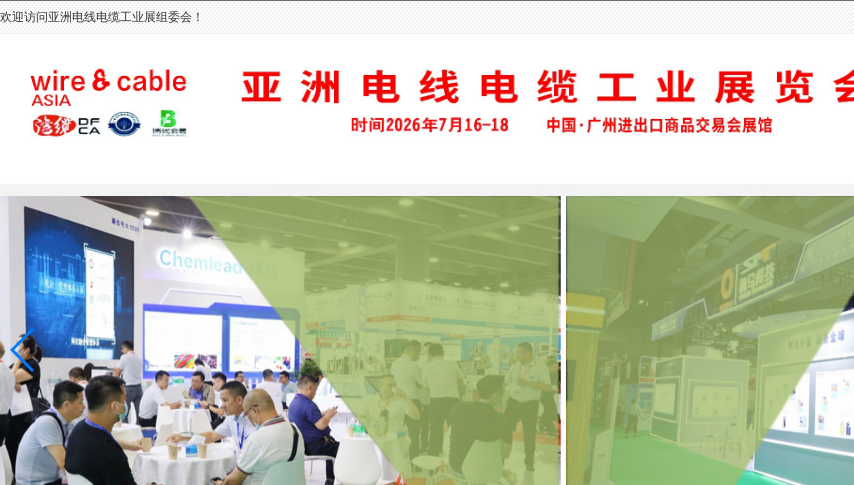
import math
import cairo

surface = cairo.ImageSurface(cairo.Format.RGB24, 854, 485)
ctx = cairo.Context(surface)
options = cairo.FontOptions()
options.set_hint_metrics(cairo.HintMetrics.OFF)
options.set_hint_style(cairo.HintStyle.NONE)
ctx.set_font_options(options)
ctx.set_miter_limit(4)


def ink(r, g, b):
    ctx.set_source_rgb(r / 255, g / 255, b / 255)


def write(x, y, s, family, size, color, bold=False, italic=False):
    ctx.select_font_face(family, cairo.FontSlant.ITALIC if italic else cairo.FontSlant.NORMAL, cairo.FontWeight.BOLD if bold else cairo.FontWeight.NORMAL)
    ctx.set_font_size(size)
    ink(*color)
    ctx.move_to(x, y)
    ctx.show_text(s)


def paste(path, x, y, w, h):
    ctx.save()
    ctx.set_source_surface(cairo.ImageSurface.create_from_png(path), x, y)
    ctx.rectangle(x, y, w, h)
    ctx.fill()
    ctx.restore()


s1 = dict(family="WenQuanYi Zen Hei Medium", size=12, color=(51, 51, 51))

ink(255, 255, 255)
ctx.paint()
paste("pic1.png", 0, 34, 854, 162)
paste("pic2.png", 0, 0, 854, 34)
write(0, 21, "欢迎访问亚洲电线电缆工业展组委会！", **s1)
paste("pic3.png", 30, 67, 824, 72)
paste("pic4.png", 0, 196, 854, 289)
ink(0, 122, 255)
ctx.new_path()
ctx.move_to(10, 350)
ctx.line_to(32, 328)
ctx.line_to(34, 330)
ctx.line_to(14, 350)
ctx.line_to(34, 370)
ctx.line_to(32, 372)
ctx.close_path()
ctx.fill()
surface.write_to_png("screenshot.png")
